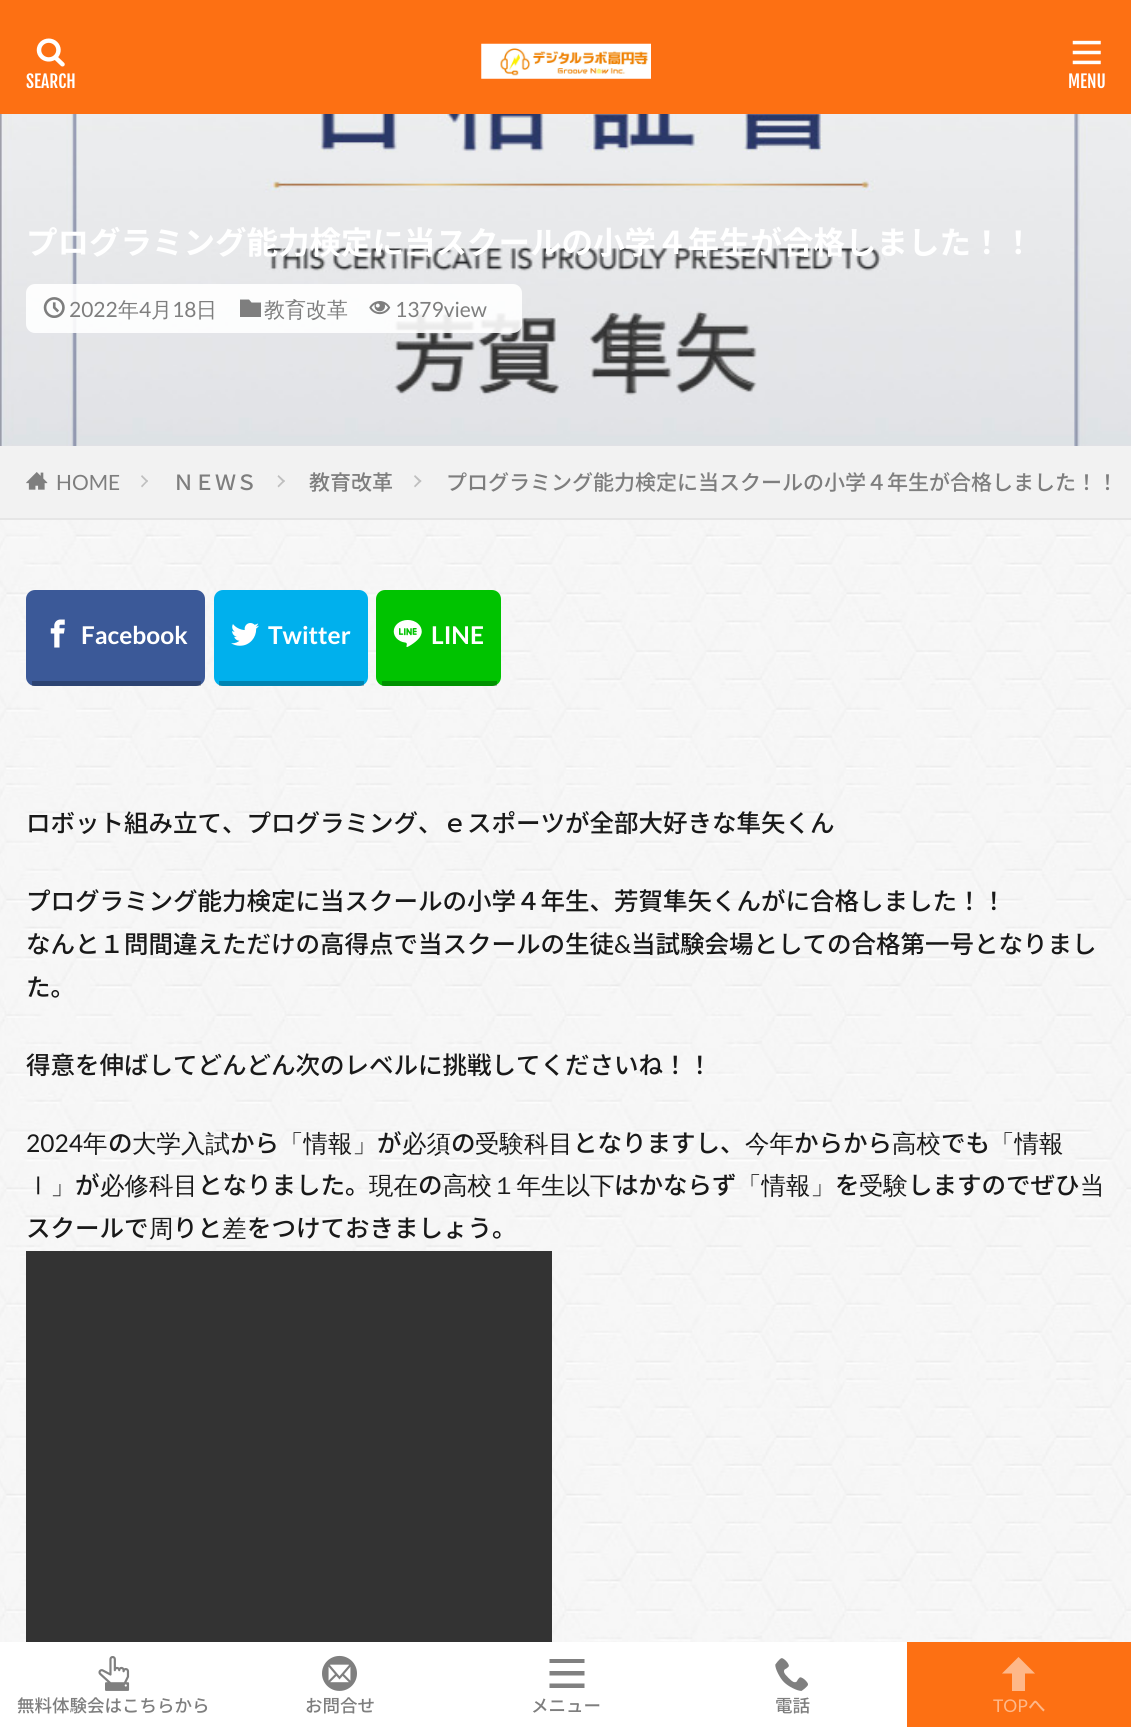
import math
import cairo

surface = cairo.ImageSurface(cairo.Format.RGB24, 1131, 1727)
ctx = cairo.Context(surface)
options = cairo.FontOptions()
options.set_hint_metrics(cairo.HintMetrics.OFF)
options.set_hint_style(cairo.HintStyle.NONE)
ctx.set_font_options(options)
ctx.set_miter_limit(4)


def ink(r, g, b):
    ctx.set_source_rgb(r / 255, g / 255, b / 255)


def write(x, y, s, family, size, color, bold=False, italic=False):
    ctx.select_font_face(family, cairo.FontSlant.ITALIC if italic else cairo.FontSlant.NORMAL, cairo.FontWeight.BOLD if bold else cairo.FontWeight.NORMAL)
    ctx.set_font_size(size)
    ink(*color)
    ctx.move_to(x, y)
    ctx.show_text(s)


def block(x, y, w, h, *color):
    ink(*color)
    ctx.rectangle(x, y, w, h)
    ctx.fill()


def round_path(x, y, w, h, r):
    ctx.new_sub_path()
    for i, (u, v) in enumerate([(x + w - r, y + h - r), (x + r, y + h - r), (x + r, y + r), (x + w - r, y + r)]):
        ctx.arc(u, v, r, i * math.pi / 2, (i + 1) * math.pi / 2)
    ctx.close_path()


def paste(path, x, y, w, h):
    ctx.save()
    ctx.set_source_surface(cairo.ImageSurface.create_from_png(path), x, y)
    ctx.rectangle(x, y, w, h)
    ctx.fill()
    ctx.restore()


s1 = dict(family="Fjalla One", size=17.5, color=(255, 255, 255))
s2 = dict(family="Noto Sans JP", size=31.5, color=(255, 255, 255), bold=True)
s3 = dict(family="Lato", size=21, color=(126, 126, 126))
s4 = dict(family="WenQuanYi Zen Hei Medium", size=21, color=(126, 126, 126))
s5 = dict(family="Noto Sans JP Medium", size=21, color=(126, 126, 126))
s6 = dict(family="Lato", size=24.5, color=(255, 255, 255), bold=True)
s7 = dict(family="Noto Sans JP Medium", size=24.5, color=(25, 25, 25))
s8 = dict(family="Lato", size=24.5, color=(25, 25, 25))
s9 = dict(family="WenQuanYi Zen Hei Medium", size=24.5, color=(25, 25, 25))
s10 = dict(family="Noto Sans JP Medium", size=17.5, color=(126, 126, 126))
s11 = dict(family="Lato", size=17.5, color=(254, 184, 137))
s12 = dict(family="Noto Sans JP Medium", size=17.5, color=(254, 184, 137))

ink(255, 255, 255)
ctx.paint()
paste("pic1.png", 0, 520, 1131, 1122)
block(0, 0, 1131, 114, 253, 112, 19)
paste("pic2.png", 481, 43, 170, 36)
paste("pic3.png", 36, 38, 29, 29)
write(26, 88, "SEARCH", **s1)
paste("pic4.png", 1072, 40, 29, 25)
write(1068, 88, "MENU", **s1)
paste("pic5.png", 0, 114, 1131, 332)
write(26, 254, "プログラミング能力検定に当スクールの小学４年生が合格しました！！", **s2)
ctx.set_source_rgba(1, 1, 1, 0.9)
round_path(26, 284, 496, 49, 9)
ctx.fill()
paste("pic6.png", 43, 297, 22, 21)
write(69, 317, "2022", **s3)
write(118, 317, "年", **s4)
write(139, 317, "4", **s3)
write(151, 317, "月", **s4)
write(172, 317, "18", **s3)
write(196, 317, "日", **s4)
ctx.new_path()
ctx.move_to(249, 299.5)
ctx.line_to(251.5, 302.5)
ctx.line_to(261, 302.5)
ctx.line_to(261, 317)
ctx.line_to(240, 317)
ctx.line_to(240, 299.5)
ctx.close_path()
ctx.fill()
write(264, 317, "教育改革", **s4)
paste("pic7.png", 369, 301, 22, 14)
write(395, 317, "1379view", **s3)
block(0, 446, 1131, 72, 242, 242, 242)
block(0, 518, 1131, 2, 230, 230, 230)
paste("pic8.png", 26, 472, 22, 18)
write(56, 490, "HOME", **s3)
ink(191, 191, 191)
ctx.new_path()
ctx.move_to(142, 475)
ctx.line_to(148, 481)
ctx.line_to(147, 482.5)
ctx.line_to(141, 476.5)
ctx.close_path()
ctx.fill()
ctx.new_path()
ctx.move_to(147, 480)
ctx.line_to(148, 481)
ctx.line_to(142, 487.5)
ctx.line_to(141, 486)
ctx.close_path()
ctx.fill()
write(173, 490, "ＮＥＷＳ", **s5)
ink(191, 191, 191)
ctx.new_path()
ctx.move_to(278.5, 475)
ctx.line_to(285, 481)
ctx.line_to(283.5, 482.5)
ctx.line_to(277.5, 476.5)
ctx.close_path()
ctx.fill()
ctx.new_path()
ctx.move_to(283.5, 480)
ctx.line_to(285, 481)
ctx.line_to(278.5, 487.5)
ctx.line_to(277.5, 486)
ctx.close_path()
ctx.fill()
write(309, 490, "教育改革", **s5)
ink(191, 191, 191)
ctx.new_path()
ctx.move_to(415, 475)
ctx.line_to(421.5, 481)
ctx.line_to(420, 482.5)
ctx.line_to(414, 476.5)
ctx.close_path()
ctx.fill()
ctx.new_path()
ctx.move_to(420, 480)
ctx.line_to(421.5, 481)
ctx.line_to(415, 487.5)
ctx.line_to(414, 486)
ctx.close_path()
ctx.fill()
write(446, 490, "プログラミング能力検定に当スクールの小学４年生が合格しました！！", **s5)
ink(59, 89, 152)
round_path(26, 590, 179, 96, 9)
ctx.fill()
ctx.set_source_rgba(0, 0, 0, 0.25)
ctx.rectangle(32, 681, 169, 5)
ctx.fill()
paste("pic9.png", 50, 619, 15, 29)
write(81, 644, "Facebook", **s6)
ink(0, 176, 237)
round_path(214, 590, 154, 96, 9)
ctx.fill()
ctx.set_source_rgba(0, 0, 0, 0.25)
ctx.rectangle(219, 681, 145, 5)
ctx.fill()
paste("pic10.png", 231, 623, 28, 23)
write(268, 644, "Twitter", **s6)
ink(0, 195, 0)
round_path(376, 590, 125, 96, 9)
ctx.fill()
ctx.set_source_rgba(0, 0, 0, 0.25)
ctx.rectangle(382, 681, 115, 5)
ctx.fill()
paste("pic11.png", 393, 620, 29, 27)
write(431, 644, "LINE", **s6)
write(26, 832, "ロボット組み立て、プログラミング、ｅスポーツが全部大好きな隼矢くん", **s7)
write(26, 910, "プログラミング能力検定に当スクールの小学４年生、芳賀隼矢くんがに合格しました！！", **s7)
write(26, 953, "なんと１問間違えただけの高得点で当スクールの生徒", **s7)
write(614, 953, "&", **s8)
write(631, 953, "当試験会場としての合格第一号となりまし", **s7)
write(26, 996, "た。", **s7)
write(26, 1074, "得意を伸ばしてどんどん次のレベルに挑戦してくださいね！！", **s7)
write(26, 1152, "2024", **s8)
write(83, 1152, "年", **s9)
write(108, 1152, "の", **s7)
write(132, 1152, "大学入試", **s9)
write(230, 1152, "から", **s7)
write(279, 1152, "「情報」", **s9)
write(377, 1152, "が", **s7)
write(402, 1152, "必須", **s9)
write(451, 1152, "の", **s7)
write(475, 1152, "受験科目", **s9)
write(573, 1152, "となりますし、", **s7)
write(745, 1152, "今年", **s9)
write(794, 1152, "からから", **s7)
write(892, 1152, "高校", **s9)
write(941, 1152, "でも", **s7)
write(990, 1152, "「情報", **s9)
write(26, 1194, "Ⅰ」", **s9)
write(75, 1194, "が", **s7)
write(100, 1194, "必修科目", **s9)
write(198, 1194, "となりました。", **s7)
write(369, 1194, "現在", **s9)
write(418, 1194, "の", **s7)
write(443, 1194, "高校１年生以下", **s9)
write(614, 1194, "はかならず", **s7)
write(737, 1194, "「情報」", **s9)
write(835, 1194, "を", **s7)
write(859, 1194, "受験", **s9)
write(908, 1194, "しますのでぜひ", **s7)
write(1080, 1194, "当", **s9)
write(26, 1237, "スクールで", **s7)
write(149, 1237, "周", **s9)
write(173, 1237, "りと", **s7)
write(222, 1237, "差", **s9)
write(247, 1237, "をつけておきましょう。", **s7)
block(26, 1251, 526, 391, 51, 51, 51)
paste("pic12.png", 98, 1656, 32, 35)
write(17, 1712, "無料体験会はこちらから", **s10)
paste("pic13.png", 322, 1655, 35, 36)
write(305, 1712, "お問合せ", **s10)
ink(128, 128, 128)
ctx.new_path()
ctx.move_to(549.5, 1659)
ctx.line_to(584.5, 1659)
ctx.line_to(584.5, 1663)
ctx.line_to(549.5, 1663)
ctx.close_path()
ctx.move_to(549.5, 1671)
ctx.line_to(584.5, 1671)
ctx.line_to(584.5, 1675.5)
ctx.line_to(549.5, 1675.5)
ctx.close_path()
ctx.move_to(549.5, 1683.5)
ctx.line_to(584.5, 1683.5)
ctx.line_to(584.5, 1688)
ctx.line_to(549.5, 1688)
ctx.close_path()
ctx.fill()
write(531, 1712, "メニュー", **s10)
paste("pic14.png", 775, 1658, 33, 33)
write(775, 1712, "電話", **s10)
block(907, 1642, 224, 85, 253, 112, 19)
ink(254, 184, 137)
ctx.new_path()
ctx.move_to(1018.5, 1657)
ctx.line_to(1002, 1673.5)
ctx.line_to(1012, 1673.5)
ctx.line_to(1012, 1691)
ctx.line_to(1025, 1691)
ctx.line_to(1025, 1673.5)
ctx.line_to(1035, 1673.5)
ctx.close_path()
ctx.fill()
write(993, 1712, "TOP", **s11)
write(1028, 1712, "へ", **s12)
surface.write_to_png("screenshot.png")
